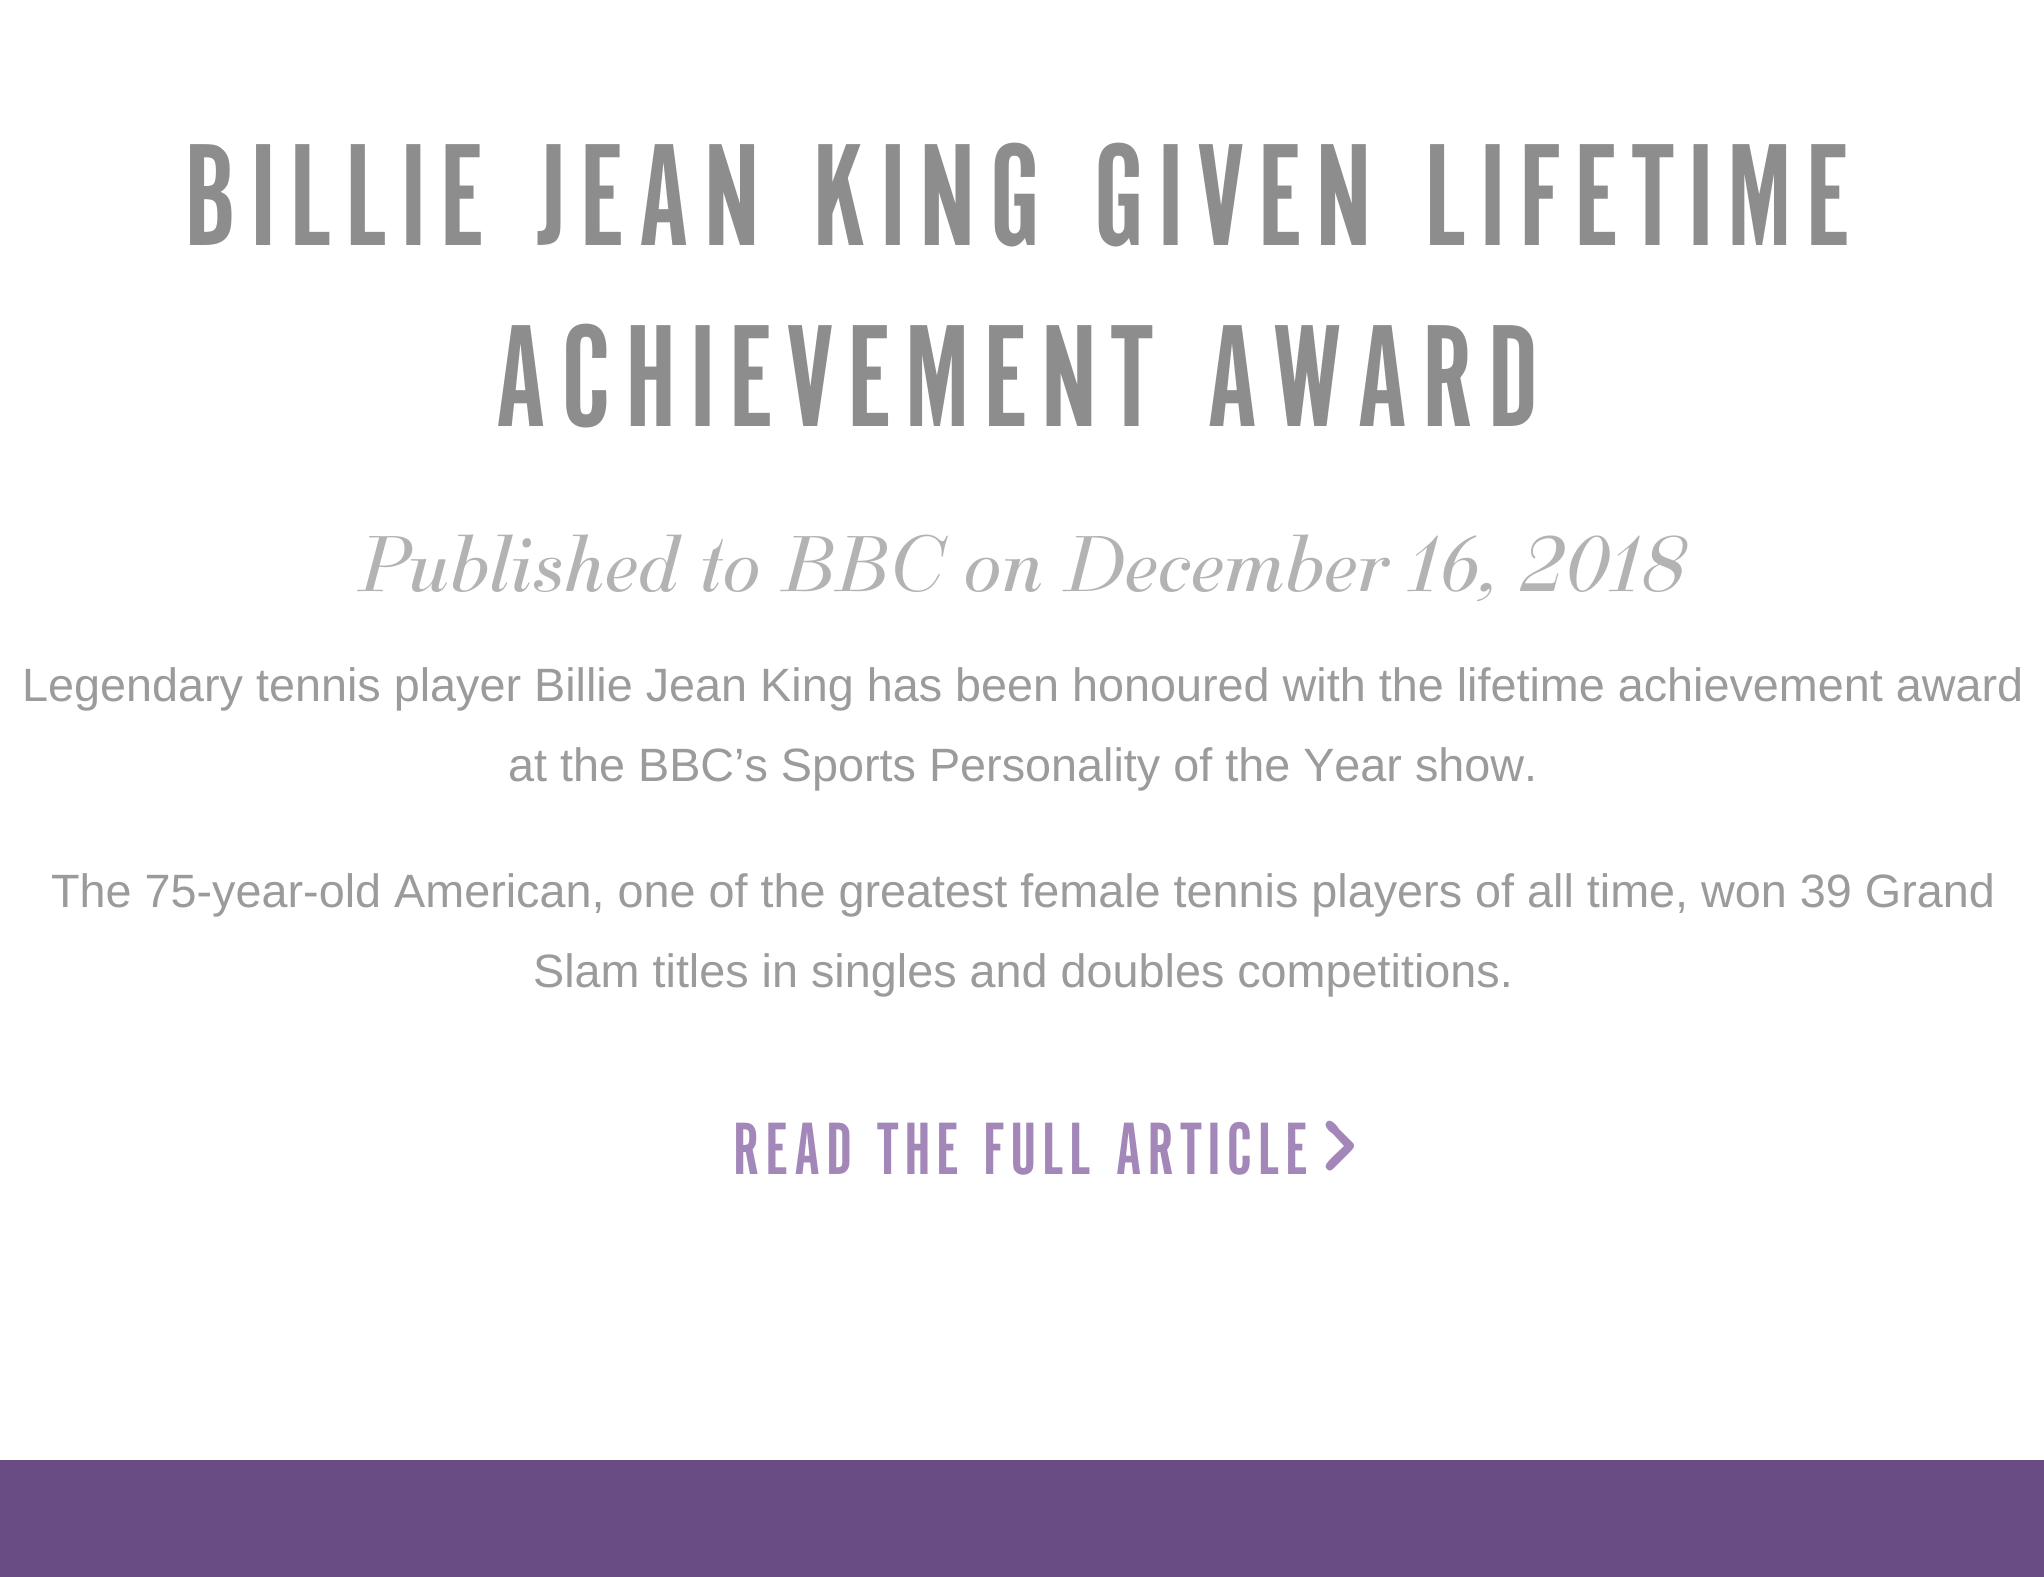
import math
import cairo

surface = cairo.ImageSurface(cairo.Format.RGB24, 2044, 1577)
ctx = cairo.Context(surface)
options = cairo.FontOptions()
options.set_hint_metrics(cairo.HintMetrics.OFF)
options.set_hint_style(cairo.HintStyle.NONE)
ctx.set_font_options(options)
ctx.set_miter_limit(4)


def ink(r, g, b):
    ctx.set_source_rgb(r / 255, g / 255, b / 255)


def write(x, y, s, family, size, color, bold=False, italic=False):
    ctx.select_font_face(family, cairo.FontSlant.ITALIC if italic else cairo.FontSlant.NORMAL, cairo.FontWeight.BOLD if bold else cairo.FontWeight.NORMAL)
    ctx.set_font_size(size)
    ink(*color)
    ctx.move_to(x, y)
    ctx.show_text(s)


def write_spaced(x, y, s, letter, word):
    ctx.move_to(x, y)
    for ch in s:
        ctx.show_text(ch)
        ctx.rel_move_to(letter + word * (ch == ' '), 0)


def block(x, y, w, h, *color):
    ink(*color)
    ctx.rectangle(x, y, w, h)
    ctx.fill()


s1 = dict(family="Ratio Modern", size=77, color=(179, 179, 179), italic=True)
s2 = dict(family="Liberation Sans", size=46.75, color=(155, 155, 155))

ink(255, 255, 255)
ctx.paint()
ctx.select_font_face("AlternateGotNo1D")
ctx.set_font_size(151.25)
ink(141, 141, 141)
write_spaced(184, 245, "BILLIE JEAN KING GIVEN LIFETIME", 13, 0)
write_spaced(494, 426, "ACHIEVEMENT AWARD", 13, 0)
write(359, 591, "Published to BBC on December 16, 2018", **s1)
write(22, 701, "Legendary tennis player Billie Jean King has been honoured with the lifetime achievement award", **s2)
write(508, 781, "at the BBC’s Sports Personality of the Year show.", **s2)
write(51, 907, "The 75-year-old American, one of the greatest female tennis players of all time, won 39 Grand", **s2)
write(533, 987, "Slam titles in singles and doubles competitions.", **s2)
ctx.select_font_face("AlternateGotNo1D")
ctx.set_font_size(77)
ink(162, 135, 184)
write_spaced(733, 1174, "READ THE FULL ARTICLE", 5.5, 0)
ctx.new_path()
ctx.move_to(1353, 1143)
ctx.curve_to(1356, 1146, 1352, 1150, 1350, 1152)
ctx.line_to(1336, 1166)
ctx.curve_to(1334, 1168, 1330, 1173, 1327, 1169)
ctx.curve_to(1326, 1168, 1325, 1167, 1326, 1165)
ctx.curve_to(1326, 1162, 1341, 1149, 1344, 1146)
ctx.line_to(1333, 1134)
ctx.curve_to(1330, 1132, 1324, 1127, 1326, 1123)
ctx.curve_to(1330, 1116, 1338, 1127, 1339, 1129)
ctx.close_path()
ctx.fill()
block(0, 1460, 2044, 117, 106, 76, 133)
surface.write_to_png("screenshot.png")
